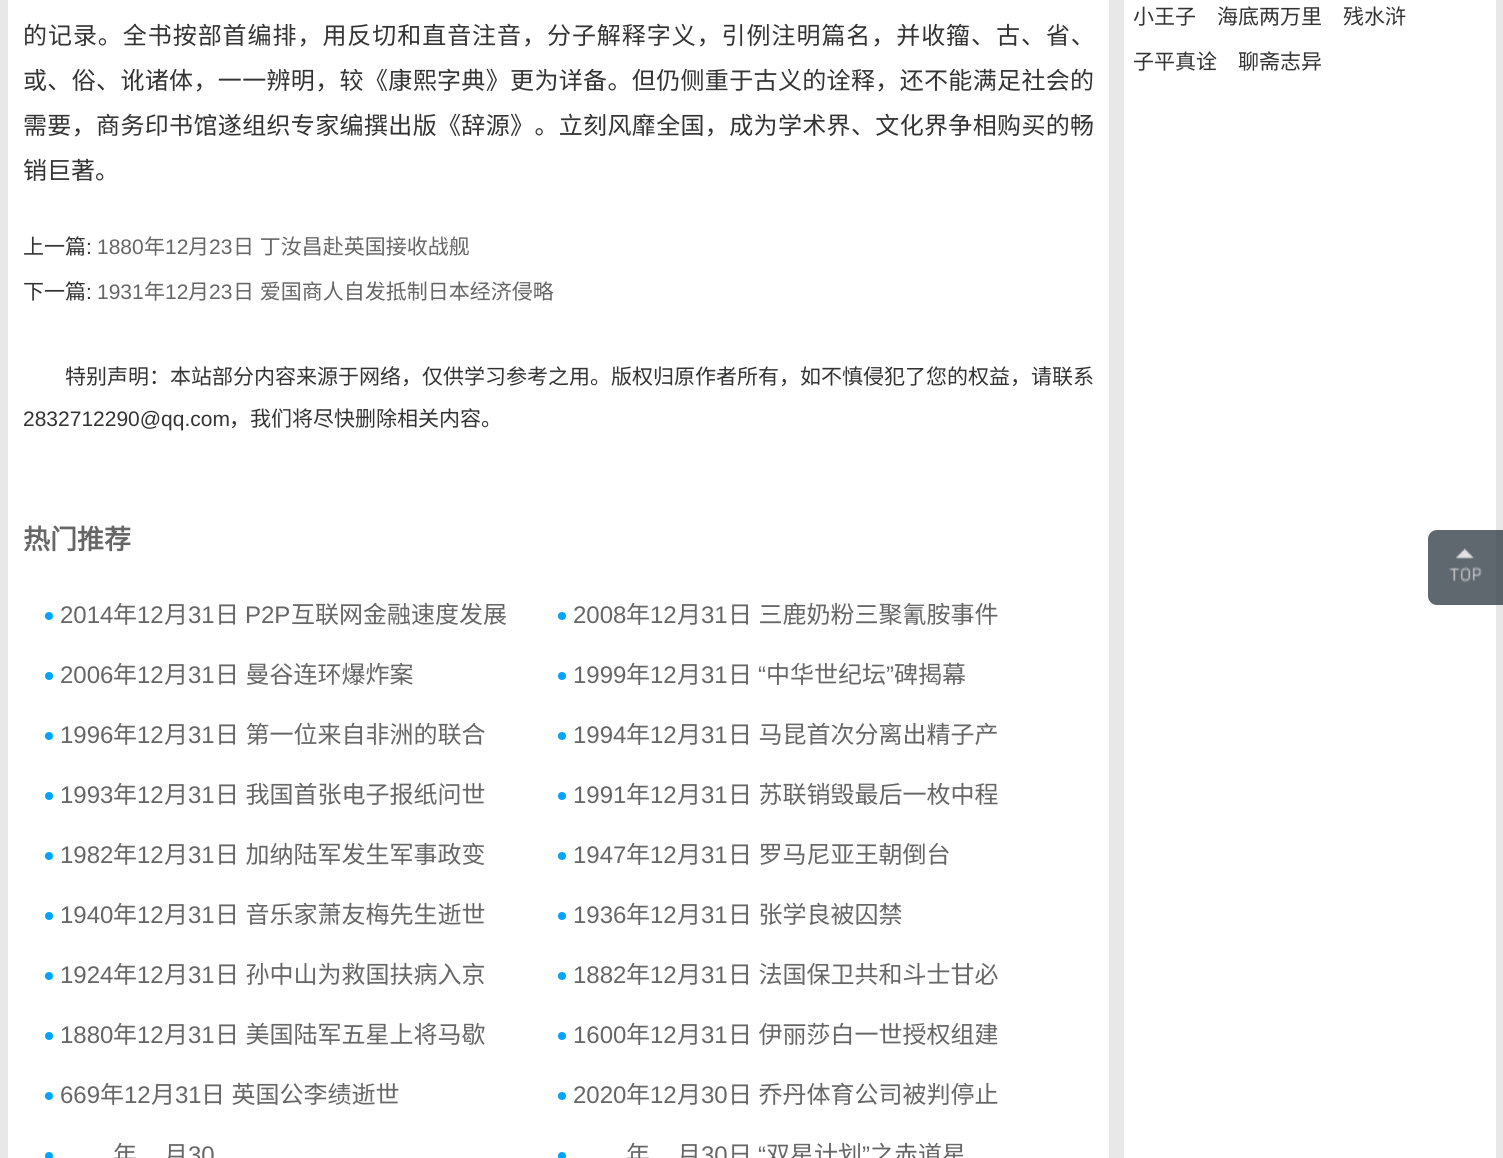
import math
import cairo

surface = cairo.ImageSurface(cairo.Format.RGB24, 1503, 1158)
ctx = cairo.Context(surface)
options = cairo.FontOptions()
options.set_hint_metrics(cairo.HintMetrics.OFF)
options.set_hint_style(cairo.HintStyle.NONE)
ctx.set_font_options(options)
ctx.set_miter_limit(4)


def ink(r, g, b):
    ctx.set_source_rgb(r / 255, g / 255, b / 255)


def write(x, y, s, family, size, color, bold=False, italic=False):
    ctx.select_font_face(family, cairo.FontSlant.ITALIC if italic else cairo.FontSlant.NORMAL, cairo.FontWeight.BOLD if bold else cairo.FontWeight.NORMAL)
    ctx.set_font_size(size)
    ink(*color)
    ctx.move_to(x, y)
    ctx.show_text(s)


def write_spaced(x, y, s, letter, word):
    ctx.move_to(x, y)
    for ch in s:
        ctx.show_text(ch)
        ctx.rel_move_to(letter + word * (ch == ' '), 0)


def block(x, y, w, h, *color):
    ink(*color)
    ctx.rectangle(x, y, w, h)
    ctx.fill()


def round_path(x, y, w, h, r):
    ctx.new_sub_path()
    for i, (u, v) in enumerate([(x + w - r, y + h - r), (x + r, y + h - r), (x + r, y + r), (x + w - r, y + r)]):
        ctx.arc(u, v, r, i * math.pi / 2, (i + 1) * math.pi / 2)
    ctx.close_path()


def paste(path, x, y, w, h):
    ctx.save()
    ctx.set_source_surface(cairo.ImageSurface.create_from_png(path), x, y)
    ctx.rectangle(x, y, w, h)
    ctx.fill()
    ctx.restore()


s1 = dict(family="Noto Sans CJK SC", size=24, color=(51, 51, 51))
s2 = dict(family="Noto Sans CJK SC", size=21, color=(51, 51, 51))
s3 = dict(family="Liberation Sans", size=21, color=(51, 51, 51))
s4 = dict(family="Liberation Sans", size=21, color=(102, 102, 102))
s5 = dict(family="Noto Sans CJK SC", size=21, color=(102, 102, 102))
s6 = dict(family="Noto Sans CJK SC", size=27, color=(102, 102, 102), bold=True)
s7 = dict(family="Liberation Sans", size=24, color=(102, 102, 102))
s8 = dict(family="Noto Sans CJK SC", size=24, color=(102, 102, 102))

ink(232, 232, 232)
ctx.paint()
block(8, 0, 1488, 1158, 255, 255, 255)
block(1109, 0, 15, 1158, 232, 232, 232)
ctx.select_font_face("Noto Sans CJK SC")
ctx.set_font_size(24)
ink(51, 51, 51)
write_spaced(23, 44, "的记录。全书按部首编排，用反切和直音注音，分子解释字义，引例注明篇名，并收籀、古、省、", 0.95, 0)
write_spaced(23, 89, "或、俗、讹诸体，一一辨明，较《康熙字典》更为详备。但仍侧重于古义的诠释，还不能满足社会的", 0.35, 0)
write_spaced(23, 134, "需要，商务印书馆遂组织专家编撰出版《辞源》。立刻风靡全国，成为学术界、文化界争相购买的畅", 0.35, 0)
write(23, 179, "销巨著。", **s1)
write(23, 254, "上一篇", **s2)
write(86, 254, ":", **s3)
write(97, 254, "1880", **s4)
write(144, 254, "年", **s5)
write(165, 254, "12", **s4)
write(188, 254, "月", **s5)
write(209, 254, "23", **s4)
ctx.select_font_face("Noto Sans CJK SC")
write_spaced(233, 254, "日 丁汝昌赴英国接收战舰", 0, 1)
write(23, 299, "下一篇", **s2)
write(86, 299, ":", **s3)
write(97, 299, "1931", **s4)
write(144, 299, "年", **s5)
write(165, 299, "12", **s4)
write(188, 299, "月", **s5)
write(209, 299, "23", **s4)
ctx.select_font_face("Noto Sans CJK SC")
write_spaced(233, 299, "日 爱国商人自发抵制日本经济侵略", 0, 1)
write(65, 384, "特别声明：本站部分内容来源于网络，仅供学习参考之用。版权归原作者所有，如不慎侵犯了您的权益，请联系", **s2)
write(23, 426, "2832712290@qq.com", **s3)
write(229, 426, "，我们将尽快删除相关内容。", **s2)
write(23, 549, "热门推荐", **s6)
ink(0, 164, 255)
ctx.new_path()
ctx.arc(49, 616, 4, 0, 2 * math.pi)
ctx.fill()
write(60, 623, "2014", **s7)
write(113, 623, "年", **s8)
write(137, 623, "12", **s7)
write(164, 623, "月", **s8)
write(188, 623, "31", **s7)
write(215, 623, "日", **s8)
write(245, 623, "P2P", **s7)
write(291, 623, "互联网金融速度发展", **s8)
ink(0, 164, 255)
ctx.new_path()
ctx.arc(562, 616, 4, 0, 2 * math.pi)
ctx.fill()
write(573, 623, "2008", **s7)
write(626, 623, "年", **s8)
write(650, 623, "12", **s7)
write(677, 623, "月", **s8)
write(701, 623, "31", **s7)
ctx.select_font_face("Noto Sans CJK SC")
write_spaced(728, 623, "日 三鹿奶粉三聚氰胺事件", 0, 1)
ink(0, 164, 255)
ctx.new_path()
ctx.arc(49, 676, 4, 0, 2 * math.pi)
ctx.fill()
write(60, 683, "2006", **s7)
write(113, 683, "年", **s8)
write(137, 683, "12", **s7)
write(164, 683, "月", **s8)
write(188, 683, "31", **s7)
ctx.select_font_face("Noto Sans CJK SC")
write_spaced(215, 683, "日 曼谷连环爆炸案", 0, 1)
ink(0, 164, 255)
ctx.new_path()
ctx.arc(562, 676, 4, 0, 2 * math.pi)
ctx.fill()
write(573, 683, "1999", **s7)
write(626, 683, "年", **s8)
write(650, 683, "12", **s7)
write(677, 683, "月", **s8)
write(701, 683, "31", **s7)
write(728, 683, "日", **s8)
write(758, 683, "“", **s7)
write(766, 683, "中华世纪坛", **s8)
write(886, 683, "”", **s7)
write(894, 683, "碑揭幕", **s8)
ink(0, 164, 255)
ctx.new_path()
ctx.arc(49, 736, 4, 0, 2 * math.pi)
ctx.fill()
write(60, 743, "1996", **s7)
write(113, 743, "年", **s8)
write(137, 743, "12", **s7)
write(164, 743, "月", **s8)
write(188, 743, "31", **s7)
ctx.select_font_face("Noto Sans CJK SC")
write_spaced(215, 743, "日 第一位来自非洲的联合", 0, 1)
ink(0, 164, 255)
ctx.new_path()
ctx.arc(562, 736, 4, 0, 2 * math.pi)
ctx.fill()
write(573, 743, "1994", **s7)
write(626, 743, "年", **s8)
write(650, 743, "12", **s7)
write(677, 743, "月", **s8)
write(701, 743, "31", **s7)
ctx.select_font_face("Noto Sans CJK SC")
write_spaced(728, 743, "日 马昆首次分离出精子产", 0, 1)
ink(0, 164, 255)
ctx.new_path()
ctx.arc(49, 796, 4, 0, 2 * math.pi)
ctx.fill()
write(60, 803, "1993", **s7)
write(113, 803, "年", **s8)
write(137, 803, "12", **s7)
write(164, 803, "月", **s8)
write(188, 803, "31", **s7)
ctx.select_font_face("Noto Sans CJK SC")
write_spaced(215, 803, "日 我国首张电子报纸问世", 0, 1)
ink(0, 164, 255)
ctx.new_path()
ctx.arc(562, 796, 4, 0, 2 * math.pi)
ctx.fill()
write(573, 803, "1991", **s7)
write(626, 803, "年", **s8)
write(650, 803, "12", **s7)
write(677, 803, "月", **s8)
write(701, 803, "31", **s7)
ctx.select_font_face("Noto Sans CJK SC")
write_spaced(728, 803, "日 苏联销毁最后一枚中程", 0, 1)
ink(0, 164, 255)
ctx.new_path()
ctx.arc(49, 856, 4, 0, 2 * math.pi)
ctx.fill()
write(60, 863, "1982", **s7)
write(113, 863, "年", **s8)
write(137, 863, "12", **s7)
write(164, 863, "月", **s8)
write(188, 863, "31", **s7)
ctx.select_font_face("Noto Sans CJK SC")
write_spaced(215, 863, "日 加纳陆军发生军事政变", 0, 1)
ink(0, 164, 255)
ctx.new_path()
ctx.arc(562, 856, 4, 0, 2 * math.pi)
ctx.fill()
write(573, 863, "1947", **s7)
write(626, 863, "年", **s8)
write(650, 863, "12", **s7)
write(677, 863, "月", **s8)
write(701, 863, "31", **s7)
ctx.select_font_face("Noto Sans CJK SC")
write_spaced(728, 863, "日 罗马尼亚王朝倒台", 0, 1)
ink(0, 164, 255)
ctx.new_path()
ctx.arc(49, 916, 4, 0, 2 * math.pi)
ctx.fill()
write(60, 923, "1940", **s7)
write(113, 923, "年", **s8)
write(137, 923, "12", **s7)
write(164, 923, "月", **s8)
write(188, 923, "31", **s7)
ctx.select_font_face("Noto Sans CJK SC")
write_spaced(215, 923, "日 音乐家萧友梅先生逝世", 0, 1)
ink(0, 164, 255)
ctx.new_path()
ctx.arc(562, 916, 4, 0, 2 * math.pi)
ctx.fill()
write(573, 923, "1936", **s7)
write(626, 923, "年", **s8)
write(650, 923, "12", **s7)
write(677, 923, "月", **s8)
write(701, 923, "31", **s7)
ctx.select_font_face("Noto Sans CJK SC")
write_spaced(728, 923, "日 张学良被囚禁", 0, 1)
ink(0, 164, 255)
ctx.new_path()
ctx.arc(49, 976, 4, 0, 2 * math.pi)
ctx.fill()
write(60, 983, "1924", **s7)
write(113, 983, "年", **s8)
write(137, 983, "12", **s7)
write(164, 983, "月", **s8)
write(188, 983, "31", **s7)
ctx.select_font_face("Noto Sans CJK SC")
write_spaced(215, 983, "日 孙中山为救国扶病入京", 0, 1)
ink(0, 164, 255)
ctx.new_path()
ctx.arc(562, 976, 4, 0, 2 * math.pi)
ctx.fill()
write(573, 983, "1882", **s7)
write(626, 983, "年", **s8)
write(650, 983, "12", **s7)
write(677, 983, "月", **s8)
write(701, 983, "31", **s7)
ctx.select_font_face("Noto Sans CJK SC")
write_spaced(728, 983, "日 法国保卫共和斗士甘必", 0, 1)
ink(0, 164, 255)
ctx.new_path()
ctx.arc(49, 1036, 4, 0, 2 * math.pi)
ctx.fill()
write(60, 1043, "1880", **s7)
write(113, 1043, "年", **s8)
write(137, 1043, "12", **s7)
write(164, 1043, "月", **s8)
write(188, 1043, "31", **s7)
ctx.select_font_face("Noto Sans CJK SC")
write_spaced(215, 1043, "日 美国陆军五星上将马歇", 0, 1)
ink(0, 164, 255)
ctx.new_path()
ctx.arc(562, 1036, 4, 0, 2 * math.pi)
ctx.fill()
write(573, 1043, "1600", **s7)
write(626, 1043, "年", **s8)
write(650, 1043, "12", **s7)
write(677, 1043, "月", **s8)
write(701, 1043, "31", **s7)
ctx.select_font_face("Noto Sans CJK SC")
write_spaced(728, 1043, "日 伊丽莎白一世授权组建", 0, 1)
ink(0, 164, 255)
ctx.new_path()
ctx.arc(49, 1096, 4, 0, 2 * math.pi)
ctx.fill()
write(60, 1103, "669", **s7)
write(100, 1103, "年", **s8)
write(124, 1103, "12", **s7)
write(151, 1103, "月", **s8)
write(175, 1103, "31", **s7)
ctx.select_font_face("Noto Sans CJK SC")
write_spaced(201, 1103, "日 英国公李绩逝世", 0, 1)
ink(0, 164, 255)
ctx.new_path()
ctx.arc(562, 1096, 4, 0, 2 * math.pi)
ctx.fill()
write(573, 1103, "2020", **s7)
write(626, 1103, "年", **s8)
write(650, 1103, "12", **s7)
write(677, 1103, "月", **s8)
write(701, 1103, "30", **s7)
ctx.select_font_face("Noto Sans CJK SC")
write_spaced(728, 1103, "日 乔丹体育公司被判停止", 0, 1)
ink(0, 164, 255)
ctx.new_path()
ctx.arc(49, 1156, 4, 0, 2 * math.pi)
ctx.fill()
write(113, 1163, "年", **s8)
write(164, 1163, "月", **s8)
write(188, 1163, "30", **s7)
ink(0, 164, 255)
ctx.new_path()
ctx.arc(562, 1156, 4, 0, 2 * math.pi)
ctx.fill()
write(626, 1163, "年", **s8)
write(677, 1163, "月", **s8)
write(701, 1163, "30", **s7)
write(728, 1163, "日", **s8)
write(758, 1163, "“", **s7)
write(766, 1163, "双星计划", **s8)
write(862, 1163, "”", **s7)
write(870, 1163, "之赤道星", **s8)
write(1133, 24, "小王子", **s2)
write(1217, 24, "海底两万里", **s2)
write(1343, 24, "残水浒", **s2)
write(1133, 69, "子平真诠", **s2)
write(1238, 69, "聊斋志异", **s2)
ctx.set_source_rgba(0.224, 0.259, 0.294, 0.8)
round_path(1428, 530, 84, 75, 9)
ctx.fill()
paste("pic1.png", 1449, 548, 33, 35)
surface.write_to_png("screenshot.png")
